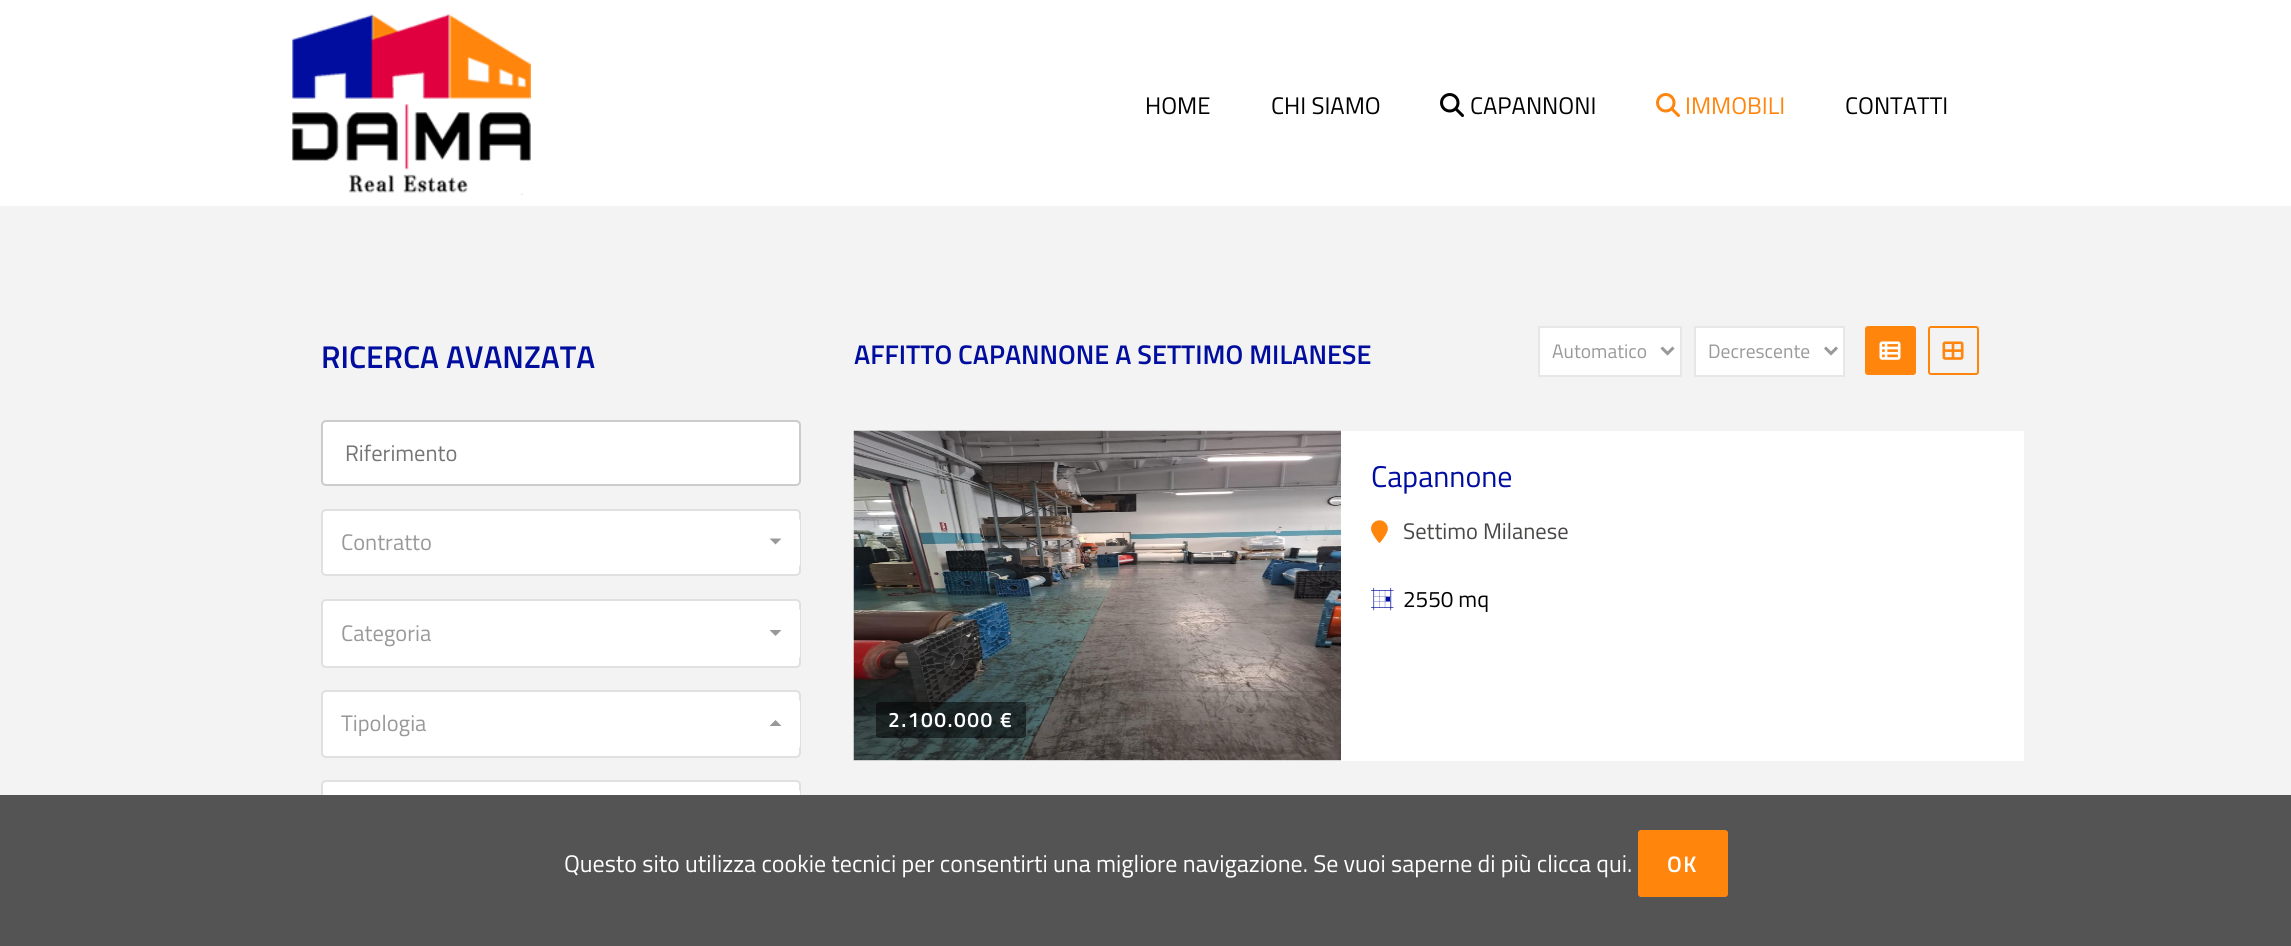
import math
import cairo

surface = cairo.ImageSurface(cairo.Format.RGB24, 2291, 946)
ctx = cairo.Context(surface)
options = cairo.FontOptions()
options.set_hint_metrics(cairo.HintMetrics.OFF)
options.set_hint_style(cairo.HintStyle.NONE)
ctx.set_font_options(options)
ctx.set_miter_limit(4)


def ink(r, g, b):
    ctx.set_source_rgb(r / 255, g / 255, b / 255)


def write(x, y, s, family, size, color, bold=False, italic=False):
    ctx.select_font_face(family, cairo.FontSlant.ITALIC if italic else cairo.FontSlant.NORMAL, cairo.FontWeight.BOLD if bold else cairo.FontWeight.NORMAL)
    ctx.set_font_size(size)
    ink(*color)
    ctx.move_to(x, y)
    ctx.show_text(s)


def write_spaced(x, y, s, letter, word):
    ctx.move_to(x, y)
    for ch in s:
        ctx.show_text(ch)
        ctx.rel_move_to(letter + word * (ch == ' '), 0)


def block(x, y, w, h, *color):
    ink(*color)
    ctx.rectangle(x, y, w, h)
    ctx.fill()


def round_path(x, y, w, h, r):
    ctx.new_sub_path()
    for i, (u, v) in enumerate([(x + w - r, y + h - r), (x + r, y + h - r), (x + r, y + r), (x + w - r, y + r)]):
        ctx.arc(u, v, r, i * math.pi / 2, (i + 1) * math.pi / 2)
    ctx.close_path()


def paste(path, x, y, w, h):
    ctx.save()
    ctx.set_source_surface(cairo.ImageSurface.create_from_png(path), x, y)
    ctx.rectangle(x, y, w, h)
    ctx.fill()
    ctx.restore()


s1 = dict(family="Titillium Web", size=24, color=(0, 0, 0))
s2 = dict(family="Titillium Web", size=24, color=(255, 133, 13))
s3 = dict(family="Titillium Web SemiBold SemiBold", size=31.5, color=(0, 13, 158))
s4 = dict(family="Titillium Web", size=22.5, color=(117, 117, 117))
s5 = dict(family="Titillium Web", size=22.5, color=(153, 153, 153))
s6 = dict(family="Titillium Web SemiBold SemiBold", size=27, color=(0, 13, 158))
s7 = dict(family="Titillium Web", size=19.5, color=(153, 153, 153))
s8 = dict(family="Titillium Web", size=30, color=(0, 13, 158))
s9 = dict(family="Titillium Web", size=22.5, color=(74, 71, 71))
s10 = dict(family="Titillium Web", size=22.5, color=(0, 0, 0))
s11 = dict(family="Titillium Web", size=24, color=(255, 255, 255))

ink(255, 255, 255)
ctx.paint()
paste("pic1.png", 292, 14, 239, 181)
write(1145, 114, "HOME", **s1)
write(1271, 114, "CHI SIAMO", **s1)
paste("pic2.png", 1440, 93, 24, 24)
write(1470, 114, "CAPANNONI", **s1)
paste("pic3.png", 1656, 93, 24, 24)
write(1685, 114, "IMMOBILI", **s2)
write(1845, 114, "CONTATTI", **s1)
block(0, 206, 2291, 589, 243, 243, 243)
write(321, 368, "RICERCA AVANZATA", **s3)
ink(255, 255, 255)
round_path(322, 421, 478, 64, 4)
ctx.fill_preserve()
ink(204, 204, 204)
ctx.stroke()
write(345, 461, "Riferimento", **s4)
ink(255, 255, 255)
round_path(322, 510, 478, 65, 4)
ctx.fill_preserve()
ink(224, 224, 224)
ctx.stroke()
ink(255, 255, 255)
round_path(323, 518, 477, 49, 3)
ctx.fill()
write(341, 550, "Contratto", **s5)
ctx.new_path()
ctx.move_to(769.5, 538.5)
ctx.line_to(781.5, 538.5)
ctx.line_to(775.5, 544.5)
ctx.close_path()
ctx.fill()
ink(255, 255, 255)
round_path(322, 600, 478, 67, 4)
ctx.fill_preserve()
ink(224, 224, 224)
ctx.stroke()
ink(255, 255, 255)
round_path(323, 608, 477, 51, 3)
ctx.fill()
write(341, 641, "Categoria", **s5)
ctx.new_path()
ctx.move_to(769.5, 630)
ctx.line_to(781.5, 630)
ctx.line_to(775.5, 636)
ctx.close_path()
ctx.fill()
ink(255, 255, 255)
round_path(322, 691, 478, 66, 4)
ctx.fill_preserve()
ink(224, 224, 224)
ctx.stroke()
ink(255, 255, 255)
round_path(323, 699, 477, 50, 3)
ctx.fill()
write(341, 731, "Tipologia", **s5)
ctx.new_path()
ctx.move_to(781.5, 726)
ctx.line_to(769.5, 726)
ctx.line_to(775.5, 720)
ctx.close_path()
ctx.fill()
ink(255, 255, 255)
round_path(322, 781, 478, 66, 4)
ctx.fill_preserve()
ink(224, 224, 224)
ctx.stroke()
ink(255, 255, 255)
round_path(323, 789, 477, 50, 3)
ctx.fill()
write(854, 364, "AFFITTO CAPANNONE A SETTIMO MILANESE", **s6)
ink(255, 255, 255)
ctx.rectangle(1539, 327, 142, 49)
ctx.fill_preserve()
ink(231, 231, 231)
ctx.stroke()
ctx.new_path()
ctx.move_to(1661.5, 347.5)
ctx.line_to(1667.5, 353.5)
ctx.line_to(1673.5, 347.5)
ink(153, 153, 153)
ctx.set_line_width(3)
ctx.stroke()
write(1552, 358, "Automatico", **s7)
ink(255, 255, 255)
ctx.rectangle(1695, 327, 149, 49)
ctx.fill_preserve()
ink(231, 231, 231)
ctx.set_line_width(2)
ctx.stroke()
ctx.new_path()
ctx.move_to(1825, 347.5)
ctx.line_to(1831, 353.5)
ctx.line_to(1837, 347.5)
ink(153, 153, 153)
ctx.set_line_width(3)
ctx.stroke()
write(1708, 358, "Decrescente", **s7)
ink(255, 133, 13)
round_path(1866, 327, 49, 47, 2)
ctx.fill_preserve()
ctx.set_line_width(2)
ctx.stroke()
paste("pic4.png", 1879, 341, 22, 19)
round_path(1929, 327, 49, 47, 2)
ctx.stroke()
paste("pic5.png", 1942, 341, 22, 19)
block(854, 431, 1170, 330, 255, 255, 255)
write(1371, 487, "Capannone", **s8)
paste("pic6.png", 1371, 520, 17, 23)
write(1403, 539, "Settimo Milanese", **s9)
paste("pic7.png", 1371, 587, 23, 24)
write(1403, 607, "2550 mq", **s10)
paste("pic8.png", 853, 430, 488, 331)
ctx.set_source_rgba(0, 0, 0, 0.5)
round_path(876, 702, 150, 36, 3)
ctx.fill()
ctx.select_font_face("Titillium Web SemiBold SemiBold")
ctx.set_font_size(21)
ink(255, 255, 255)
write_spaced(888, 727, "2.100.000 €", 1.5, 0)
block(0, 795, 2291, 151, 84, 84, 84)
write(564, 872, "Questo sito utilizza cookie tecnici per consentirti una migliore navigazione. Se vuoi saperne di più clicca qui.", **s11)
ink(255, 133, 13)
round_path(1638, 830, 90, 67, 3)
ctx.fill()
ctx.select_font_face("Titillium Web SemiBold SemiBold")
ctx.set_font_size(22.5)
ink(255, 255, 255)
write_spaced(1667, 872, "OK", 1.5, 0)
surface.write_to_png("screenshot.png")
